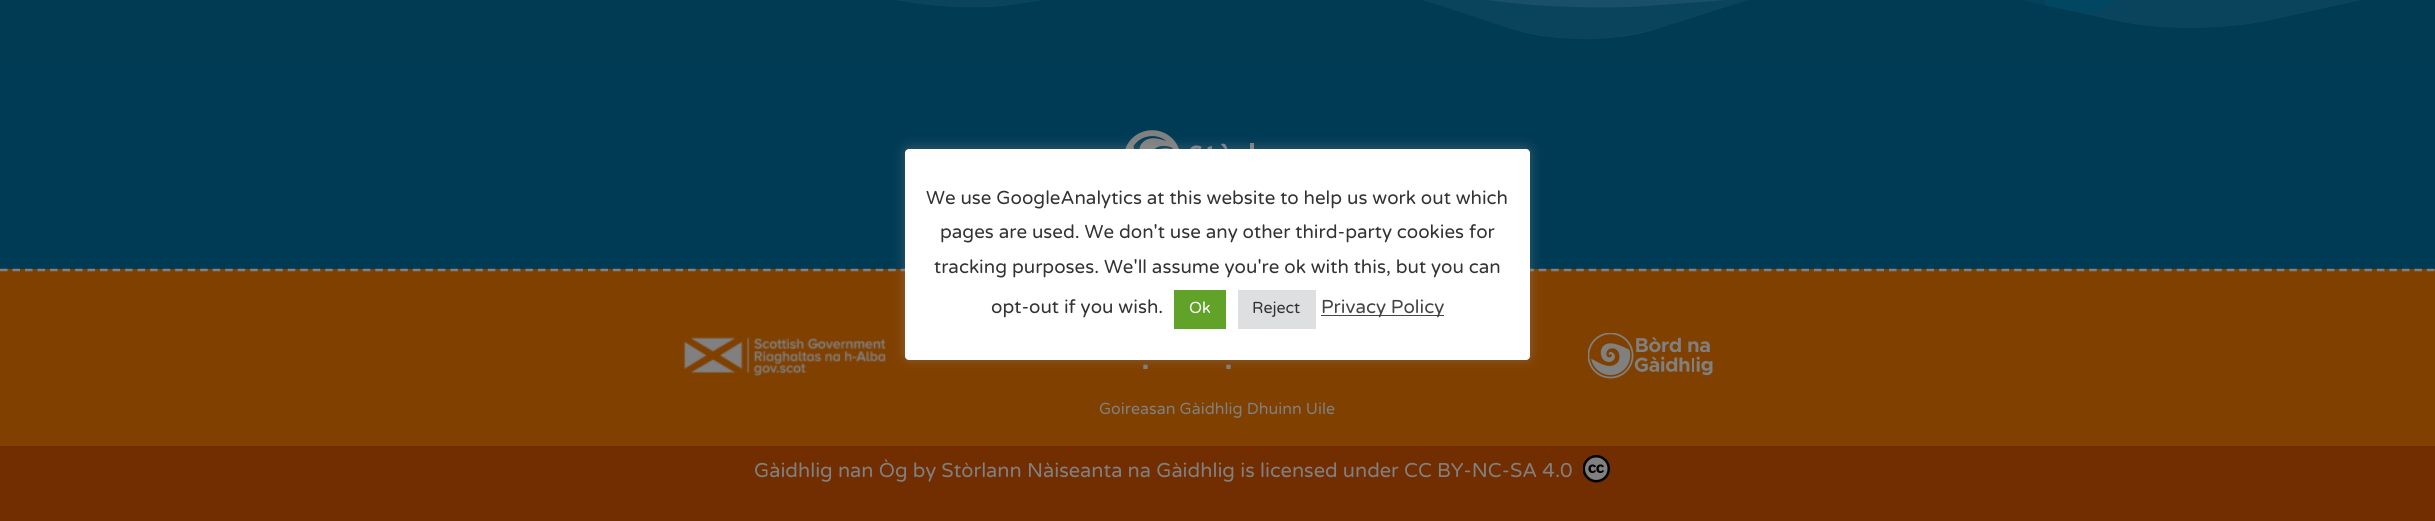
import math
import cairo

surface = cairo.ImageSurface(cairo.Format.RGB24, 2435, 521)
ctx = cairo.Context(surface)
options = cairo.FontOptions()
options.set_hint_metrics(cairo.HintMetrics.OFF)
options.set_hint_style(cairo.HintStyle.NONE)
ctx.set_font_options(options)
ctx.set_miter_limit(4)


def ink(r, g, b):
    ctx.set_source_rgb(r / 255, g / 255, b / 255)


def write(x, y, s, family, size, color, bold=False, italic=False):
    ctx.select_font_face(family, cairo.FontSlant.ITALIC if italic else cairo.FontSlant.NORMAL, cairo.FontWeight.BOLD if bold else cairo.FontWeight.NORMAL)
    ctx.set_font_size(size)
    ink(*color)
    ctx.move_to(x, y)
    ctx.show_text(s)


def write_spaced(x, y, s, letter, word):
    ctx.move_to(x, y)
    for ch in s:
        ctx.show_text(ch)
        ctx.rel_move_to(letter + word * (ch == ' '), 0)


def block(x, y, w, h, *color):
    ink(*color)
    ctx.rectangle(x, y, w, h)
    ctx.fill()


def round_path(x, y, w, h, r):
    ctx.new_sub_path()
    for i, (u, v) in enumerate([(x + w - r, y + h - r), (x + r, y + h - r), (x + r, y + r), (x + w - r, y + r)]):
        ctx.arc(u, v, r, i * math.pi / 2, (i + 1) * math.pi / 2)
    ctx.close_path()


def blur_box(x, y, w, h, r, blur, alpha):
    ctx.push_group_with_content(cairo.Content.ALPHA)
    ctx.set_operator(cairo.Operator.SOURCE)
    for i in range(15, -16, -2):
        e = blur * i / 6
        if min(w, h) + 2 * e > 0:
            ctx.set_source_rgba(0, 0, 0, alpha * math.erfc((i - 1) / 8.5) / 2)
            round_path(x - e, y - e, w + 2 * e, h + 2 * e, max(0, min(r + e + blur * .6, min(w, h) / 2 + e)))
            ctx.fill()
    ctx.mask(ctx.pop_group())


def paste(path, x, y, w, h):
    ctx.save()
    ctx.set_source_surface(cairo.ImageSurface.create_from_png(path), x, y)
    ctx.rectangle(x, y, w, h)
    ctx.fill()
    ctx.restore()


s1 = dict(family="Varela Round", size=18.75, color=(51, 51, 51))
s2 = dict(family="Varela Round", size=16, color=(255, 255, 255))
s3 = dict(family="Varela Round", size=16, color=(51, 51, 51))
s4 = dict(family="Varela Round", size=18.75, color=(68, 68, 68))
s5 = dict(family="Varela Round", size=16, color=(128, 128, 128))
s6 = dict(family="Varela Round", size=20, color=(128, 128, 128))

ink(0, 59, 85)
ctx.paint()
block(897, 0, 1463, 39, 25, 79, 104)
paste("pic2.png", 2021, 0, 98, 16)
paste("pic1.png", 0, 0, 2435, 63)
paste("pic3.png", 1125, 130, 129, 19)
block(0, 269, 2435, 177, 128, 64, 0)
ctx.new_path()
ctx.move_to(0, 270)
ctx.line_to(2435, 270)
ink(128, 128, 128)
ctx.set_line_width(2.5)
ctx.set_dash([7.5, 5.01])
ctx.stroke()
paste("pic4.png", 683, 337, 204, 40)
ink(172, 171, 171)
blur_box(905, 148, 625, 211, 4, 6, 0.3)
ink(255, 255, 255)
round_path(905, 149, 625, 211, 4)
ctx.fill()
write(926, 204, "We use GoogleAnalytics at this website to help us work out which", **s1)
write(940, 238, "pages are used. We don't use any other third-party cookies for", **s1)
write(934, 273, "tracking purposes. We'll assume you're ok with this, but you can", **s1)
write(991, 313, "opt-out if you wish.", **s1)
block(1174, 290, 52, 39, 97, 162, 41)
write(1189, 313, "Ok", **s2)
block(1238, 290, 78, 39, 222, 223, 224)
write(1252, 313, "Reject", **s3)
block(1321, 315, 123, 1, 68, 68, 68)
write(1321, 313, "Privacy Policy", **s4)
paste("pic5.png", 1588, 333, 125, 46)
ctx.select_font_face("Public Sans", cairo.FontSlant.NORMAL, cairo.FontWeight.BOLD)
ctx.set_font_size(27)
ink(128, 128, 128)
write_spaced(1142, 369, ".", -1, 0)
write_spaced(1225, 369, ".", -1, 0)
write(1099, 414, "Goireasan Gàidhlig Dhuinn Uile", **s5)
block(0, 446, 2435, 75, 114, 46, 0)
write(754, 477, "Gàidhlig nan Òg by Stòrlann Nàiseanta na Gàidhlig is licensed under CC BY-NC-SA 4.0", **s6)
paste("pic6.png", 1583, 455, 27, 28)
surface.write_to_png("screenshot.png")
